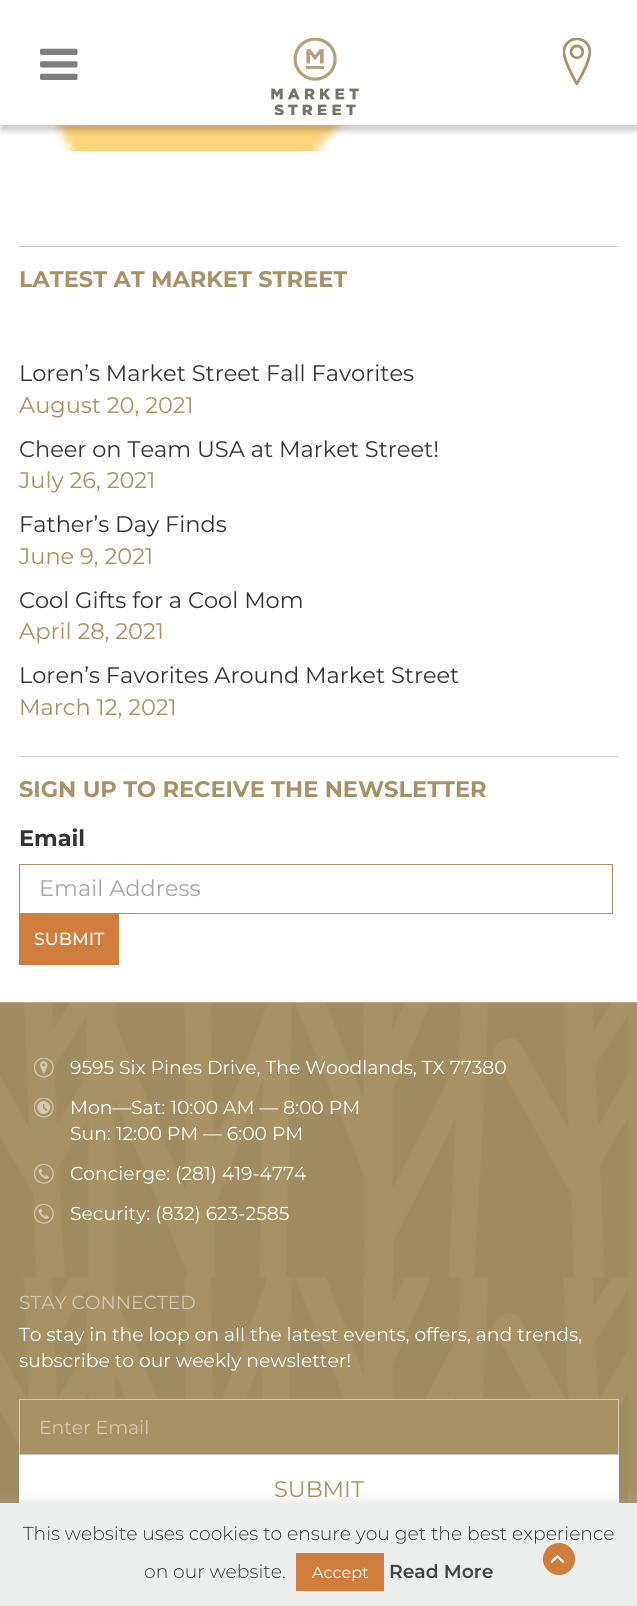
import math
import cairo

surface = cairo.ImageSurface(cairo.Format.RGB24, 637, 1606)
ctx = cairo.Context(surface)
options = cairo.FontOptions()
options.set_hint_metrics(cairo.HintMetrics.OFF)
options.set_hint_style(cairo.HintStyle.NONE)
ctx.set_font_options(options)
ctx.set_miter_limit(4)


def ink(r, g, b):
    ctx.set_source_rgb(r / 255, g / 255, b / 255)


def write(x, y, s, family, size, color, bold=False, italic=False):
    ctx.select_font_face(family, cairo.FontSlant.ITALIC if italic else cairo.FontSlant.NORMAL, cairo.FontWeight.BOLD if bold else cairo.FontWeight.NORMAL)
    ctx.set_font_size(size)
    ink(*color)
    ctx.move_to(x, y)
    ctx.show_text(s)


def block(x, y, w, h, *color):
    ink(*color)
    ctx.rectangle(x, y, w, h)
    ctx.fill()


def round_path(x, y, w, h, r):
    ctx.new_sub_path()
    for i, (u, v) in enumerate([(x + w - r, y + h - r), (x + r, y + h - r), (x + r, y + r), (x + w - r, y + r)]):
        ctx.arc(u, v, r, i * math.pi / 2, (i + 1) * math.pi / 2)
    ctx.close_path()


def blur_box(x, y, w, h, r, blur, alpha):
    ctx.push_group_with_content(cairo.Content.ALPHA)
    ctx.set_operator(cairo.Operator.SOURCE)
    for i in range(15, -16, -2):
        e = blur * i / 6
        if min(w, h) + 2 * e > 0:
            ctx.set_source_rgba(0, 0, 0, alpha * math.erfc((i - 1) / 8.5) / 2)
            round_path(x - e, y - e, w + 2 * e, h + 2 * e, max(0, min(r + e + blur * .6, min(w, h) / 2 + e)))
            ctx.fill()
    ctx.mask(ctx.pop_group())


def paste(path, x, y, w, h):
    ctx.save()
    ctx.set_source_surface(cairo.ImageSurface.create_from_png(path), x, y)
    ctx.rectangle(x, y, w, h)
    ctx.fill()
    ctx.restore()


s1 = dict(family="Montserrat", size=22.5, color=(166, 146, 100), bold=True)
s2 = dict(family="Montserrat", size=22.5, color=(51, 51, 51))
s3 = dict(family="Montserrat", size=22.5, color=(166, 146, 100))
s4 = dict(family="Montserrat", size=22.5, color=(51, 51, 51), bold=True)
s5 = dict(family="Montserrat", size=22.5, color=(166, 166, 166))
s6 = dict(family="Montserrat Medium", size=17.5, color=(255, 255, 255))
s7 = dict(family="Montserrat", size=18.75, color=(255, 255, 255))
s8 = dict(family="Montserrat", size=18.75, color=(209, 199, 177))
s9 = dict(family="Montserrat Light", size=18.75, color=(51, 51, 51))
s10 = dict(family="Montserrat", size=16, color=(255, 255, 255))
s11 = dict(family="Montserrat SemiBold", size=18.75, color=(68, 68, 68))
s12 = dict(family="Liberation Sans", size=32, color=(255, 255, 255))

ink(255, 255, 255)
ctx.paint()
paste("pic4.png", 53, 125, 296, 26)
ink(0, 0, 0)
blur_box(0, 6, 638, 125, 0, 3, 0.2)
block(0, 1, 637, 124, 255, 255, 255)
paste("pic1.png", 40, 48, 38, 32)
paste("pic2.png", 563, 38, 28, 47)
paste("pic3.png", 271, 38, 88, 77)
block(19, 246, 600, 1, 204, 204, 204)
write(19, 287, "LATEST AT MARKET STREET", **s1)
write(19, 381, "Loren’s Market Street Fall Favorites", **s2)
write(19, 413, "August 20, 2021", **s3)
write(19, 457, "Cheer on Team USA at Market Street!", **s2)
write(19, 488, "July 26, 2021", **s3)
write(19, 532, "Father’s Day Finds", **s2)
write(19, 564, "June 9, 2021", **s3)
write(19, 608, "Cool Gifts for a Cool Mom", **s2)
write(19, 639, "April 28, 2021", **s3)
write(19, 683, "Loren’s Favorites Around Market Street", **s2)
write(19, 715, "March 12, 2021", **s3)
block(19, 756, 600, 1, 204, 204, 204)
write(19, 797, "SIGN UP TO RECEIVE THE NEWSLETTER", **s1)
write(19, 846, "Email", **s4)
ctx.rectangle(19.5, 864.5, 593, 49)
ink(166, 146, 100)
ctx.set_line_width(1)
ctx.stroke()
write(39, 896, "Email Address", **s5)
block(19, 914, 100, 51, 209, 125, 59)
write(34, 945, "SUBMIT", **s6)
paste("pic5.png", 0, 1002, 637, 501)
paste("pic6.png", 34, 1058, 20, 20)
write(70, 1074, "9595 Six Pines Drive, The Woodlands, TX 77380", **s7)
paste("pic7.png", 34, 1098, 20, 20)
write(70, 1114, "Mon—Sat: 10:00 AM — 8:00 PM", **s7)
write(70, 1140, "Sun: 12:00 PM — 6:00 PM", **s7)
paste("pic8.png", 34, 1164, 20, 20)
write(70, 1180, "Concierge: (281) 419-4774", **s7)
paste("pic8.png", 34, 1204, 20, 20)
write(70, 1220, "Security: (832) 623-2585", **s7)
write(19, 1309, "STAY CONNECTED", **s8)
write(19, 1341, "To stay in the loop on all the latest events, offers, and trends,", **s7)
write(19, 1367, "subscribe to our weekly newsletter!", **s7)
ink(166, 146, 100)
ctx.rectangle(19.5, 1399.5, 599, 55)
ctx.fill_preserve()
ink(211, 201, 178)
ctx.stroke()
write(39, 1434, "Enter Email", **s8)
block(19, 1455, 600, 48, 255, 255, 255)
write(274, 1497, "SUBMIT", **s3)
ink(172, 171, 171)
blur_box(0, 1501, 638, 104, 0, 6, 0.3)
block(0, 1503, 637, 103, 236, 237, 237)
write(23, 1540, "This website uses cookies to ensure you get the best experience", **s9)
write(144, 1578, "on our website.", **s9)
block(296, 1553, 88, 38, 209, 125, 59)
write(312, 1578, "Accept", **s10)
write(389, 1578, "Read More", **s11)
ink(209, 125, 59)
ctx.new_path()
ctx.arc(559, 1559, 16, 0, 2 * math.pi)
ctx.fill()
ctx.save()
ctx.translate(549, 1554)
ctx.rotate(90 * math.pi / 180)
write(0, 0, "‹", **s12)
ctx.restore()
surface.write_to_png("screenshot.png")
